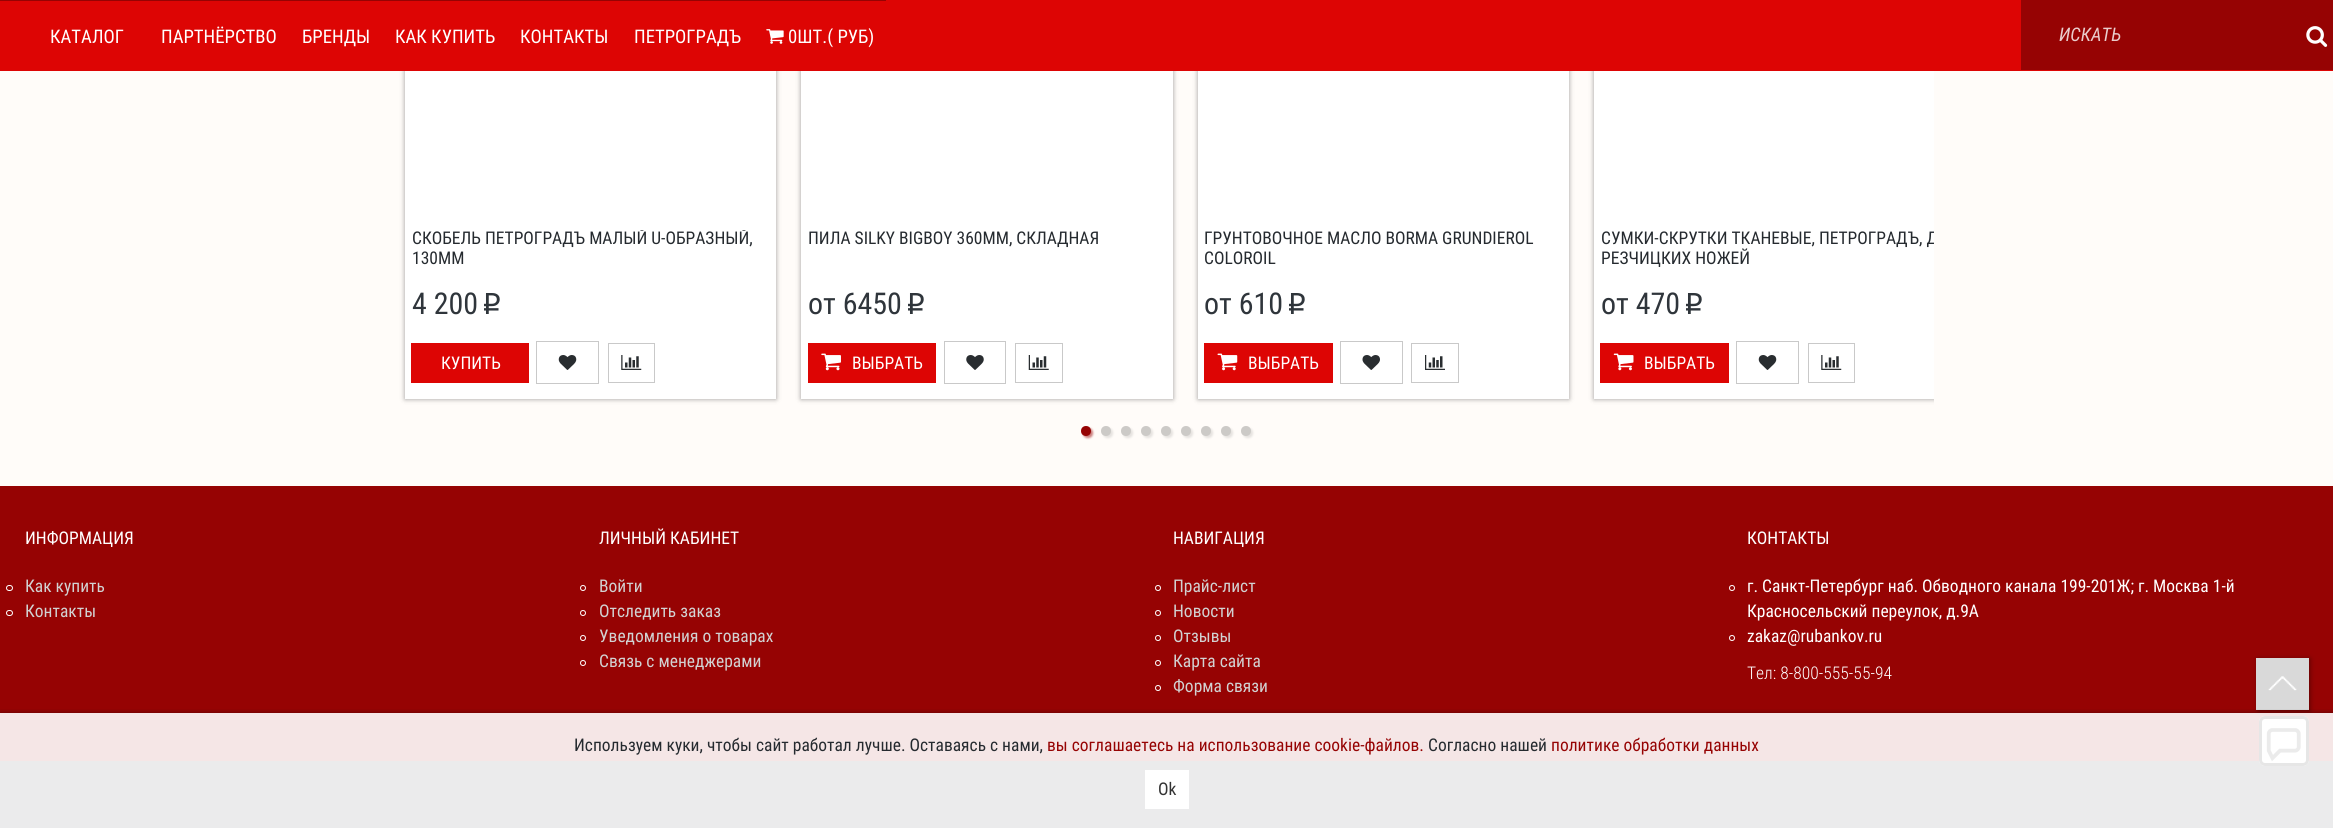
import math
import cairo

surface = cairo.ImageSurface(cairo.Format.RGB24, 2333, 828)
ctx = cairo.Context(surface)
options = cairo.FontOptions()
options.set_hint_metrics(cairo.HintMetrics.OFF)
options.set_hint_style(cairo.HintStyle.NONE)
ctx.set_font_options(options)
ctx.set_miter_limit(4)


def ink(r, g, b):
    ctx.set_source_rgb(r / 255, g / 255, b / 255)


def write(x, y, s, family, size, color, bold=False, italic=False):
    ctx.select_font_face(family, cairo.FontSlant.ITALIC if italic else cairo.FontSlant.NORMAL, cairo.FontWeight.BOLD if bold else cairo.FontWeight.NORMAL)
    ctx.set_font_size(size)
    ink(*color)
    ctx.move_to(x, y)
    ctx.show_text(s)


def block(x, y, w, h, *color):
    ink(*color)
    ctx.rectangle(x, y, w, h)
    ctx.fill()


def round_path(x, y, w, h, r):
    ctx.new_sub_path()
    for i, (u, v) in enumerate([(x + w - r, y + h - r), (x + r, y + h - r), (x + r, y + r), (x + w - r, y + r)]):
        ctx.arc(u, v, r, i * math.pi / 2, (i + 1) * math.pi / 2)
    ctx.close_path()


def blur_box(x, y, w, h, r, blur, alpha):
    ctx.push_group_with_content(cairo.Content.ALPHA)
    ctx.set_operator(cairo.Operator.SOURCE)
    for i in range(15, -16, -2):
        e = blur * i / 6
        if min(w, h) + 2 * e > 0:
            ctx.set_source_rgba(0, 0, 0, alpha * math.erfc((i - 1) / 8.5) / 2)
            round_path(x - e, y - e, w + 2 * e, h + 2 * e, max(0, min(r + e + blur * .6, min(w, h) / 2 + e)))
            ctx.fill()
    ctx.mask(ctx.pop_group())


def paste(path, x, y, w, h):
    ctx.save()
    ctx.set_source_surface(cairo.ImageSurface.create_from_png(path), x, y)
    ctx.rectangle(x, y, w, h)
    ctx.fill()
    ctx.restore()


s1 = dict(family="Roboto Condensed", size=18.75, color=(255, 255, 255))
s2 = dict(family="Roboto Condensed", size=18.75, color=(234, 205, 205), italic=True)
s3 = dict(family="Roboto Condensed", size=17.5, color=(37, 42, 47))
s4 = dict(family="Roboto Condensed", size=30, color=(47, 53, 59))
s5 = dict(family="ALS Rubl", size=30, color=(47, 53, 59))
s6 = dict(family="Roboto Condensed", size=17.5, color=(255, 255, 255))
s7 = dict(family="Roboto Condensed", size=17.5, color=(210, 210, 210))
s8 = dict(family="Roboto Condensed Light", size=17.5, color=(255, 255, 255))
s9 = dict(family="Roboto Condensed", size=17.5, color=(150, 3, 3))
s10 = dict(family="Roboto Condensed", size=17.5, color=(51, 51, 51))

ink(255, 252, 249)
ctx.paint()
ink(0, 0, 0)
blur_box(405, -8, 371, 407, 0, 2.5, 0.4)
blur_box(801, -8, 372, 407, 0, 2.5, 0.4)
blur_box(1198, -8, 371, 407, 0, 2.5, 0.4)
ctx.save()
ctx.rectangle(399, 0, 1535, 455)
ctx.clip()
blur_box(1594, -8, 371, 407, 0, 2.5, 0.4)
ctx.restore()
block(0, 0, 2333, 71, 221, 5, 4)
block(0, 0, 886, 1, 150, 3, 3)
write(50, 43, "КАТАЛОГ", **s1)
write(161, 43, "ПАРТНЁРСТВО", **s1)
write(302, 43, "БРЕНДЫ", **s1)
write(395, 43, "КАК КУПИТЬ", **s1)
write(520, 43, "КОНТАКТЫ", **s1)
write(634, 43, "ПЕТРОГРАДЪ", **s1)
paste("pic1.png", 766, 29, 18, 15)
write(788, 43, "0ШТ.( РУБ)", **s1)
block(2021, 0, 312, 70, 150, 3, 3)
write(2059, 41, "ИСКАТЬ", **s2)
paste("pic2.png", 2306, 26, 22, 21)
block(405, 71, 371, 328, 255, 255, 255)
ctx.save()
ctx.rectangle(411, 230, 359, 38)
ctx.clip()
write(412, 244, "СКОБЕЛЬ ПЕТРОГРАДЪ МАЛЫЙ U-ОБРАЗНЫЙ,", **s3)
ctx.restore()
write(412, 264, "130ММ", **s3)
write(412, 314, "4 200", **s4)
write(478, 314, "p", **s5)
block(411, 343, 118, 40, 221, 5, 4)
write(441, 369, "КУПИТЬ", **s6)
ctx.rectangle(536.5, 341.5, 62, 42)
ink(201, 201, 201)
ctx.set_line_width(1)
ctx.stroke()
paste("pic3.png", 558, 355, 19, 15)
ctx.rectangle(608.5, 343.5, 46, 39)
ctx.stroke()
paste("pic4.png", 621, 355, 21, 15)
block(801, 71, 372, 328, 255, 255, 255)
write(808, 244, "ПИЛА SILKY BIGBOY 360ММ, СКЛАДНАЯ", **s3)
write(808, 314, "от 6450", **s4)
write(902, 314, "p", **s5)
block(808, 343, 128, 40, 221, 5, 4)
paste("pic5.png", 821, 353, 20, 18)
write(852, 369, "ВЫБРАТЬ", **s6)
ctx.rectangle(944.5, 341.5, 61, 42)
ink(201, 201, 201)
ctx.stroke()
paste("pic6.png", 966, 355, 18, 15)
ctx.rectangle(1015.5, 343.5, 47, 39)
ctx.stroke()
paste("pic7.png", 1028, 355, 21, 15)
block(1198, 71, 371, 328, 255, 255, 255)
write(1204, 244, "ГРУНТОВОЧНОЕ МАСЛО BORMA GRUNDIEROL", **s3)
write(1204, 264, "COLOROIL", **s3)
write(1204, 314, "от 610", **s4)
write(1283, 314, "p", **s5)
block(1204, 343, 129, 40, 221, 5, 4)
paste("pic8.png", 1217, 353, 21, 18)
write(1248, 369, "ВЫБРАТЬ", **s6)
ctx.rectangle(1340.5, 341.5, 62, 42)
ink(201, 201, 201)
ctx.stroke()
paste("pic9.png", 1362, 355, 18, 15)
ctx.rectangle(1411.5, 343.5, 47, 39)
ctx.stroke()
paste("pic10.png", 1425, 355, 20, 15)
block(1594, 71, 340, 328, 255, 255, 255)
ctx.save()
ctx.rectangle(1600, 230, 334, 38)
ctx.clip()
write(1601, 244, "СУМКИ-СКРУТКИ ТКАНЕВЫЕ, ПЕТРОГРАДЪ, Д", **s3)
ctx.restore()
write(1601, 264, "РЕЗЧИЦКИХ НОЖЕЙ", **s3)
write(1601, 314, "от 470", **s4)
write(1680, 314, "p", **s5)
block(1600, 343, 129, 40, 221, 5, 4)
paste("pic11.png", 1613, 353, 21, 18)
write(1644, 369, "ВЫБРАТЬ", **s6)
ctx.rectangle(1736.5, 341.5, 62, 42)
ink(201, 201, 201)
ctx.stroke()
paste("pic3.png", 1758, 355, 19, 15)
ctx.rectangle(1808.5, 343.5, 46, 39)
ctx.stroke()
paste("pic4.png", 1821, 355, 21, 15)
ink(150, 3, 3)
blur_box(1083, 428, 10, 10, 5, 1, 0.5)
ink(150, 3, 3)
ctx.arc(1086, 431, 5, 0, 2 * math.pi)
ctx.fill()
ink(204, 202, 199)
blur_box(1103, 428, 10, 10, 5, 1, 0.5)
ink(204, 202, 199)
ctx.arc(1106, 431, 5, 0, 2 * math.pi)
ctx.fill()
ink(204, 202, 199)
blur_box(1123, 428, 10, 10, 5, 1, 0.5)
ink(204, 202, 199)
ctx.arc(1126, 431, 5, 0, 2 * math.pi)
ctx.fill()
ink(204, 202, 199)
blur_box(1143, 428, 10, 10, 5, 1, 0.5)
ink(204, 202, 199)
ctx.arc(1146, 431, 5, 0, 2 * math.pi)
ctx.fill()
ink(204, 202, 199)
blur_box(1163, 428, 10, 10, 5, 1, 0.5)
ink(204, 202, 199)
ctx.arc(1166, 431, 5, 0, 2 * math.pi)
ctx.fill()
ink(204, 202, 199)
blur_box(1183, 428, 10, 10, 5, 1, 0.5)
ink(204, 202, 199)
ctx.arc(1186, 431, 5, 0, 2 * math.pi)
ctx.fill()
ink(204, 202, 199)
blur_box(1203, 428, 10, 10, 5, 1, 0.5)
ink(204, 202, 199)
ctx.arc(1206, 431, 5, 0, 2 * math.pi)
ctx.fill()
ink(204, 202, 199)
blur_box(1223, 428, 10, 10, 5, 1, 0.5)
ink(204, 202, 199)
ctx.arc(1226, 431, 5, 0, 2 * math.pi)
ctx.fill()
ink(204, 202, 199)
blur_box(1243, 428, 10, 10, 5, 1, 0.5)
ink(204, 202, 199)
ctx.arc(1246, 431, 5, 0, 2 * math.pi)
ctx.fill()
block(0, 486, 2333, 275, 150, 3, 3)
write(25, 544, "ИНФОРМАЦИЯ", **s6)
round_path(6.5, 585.5, 6, 5, 2.5)
ctx.stroke()
write(25, 592, "Как купить", **s7)
round_path(6.5, 610.5, 6, 5, 2.5)
ink(255, 255, 255)
ctx.stroke()
write(25, 617, "Контакты", **s7)
write(599, 544, "ЛИЧНЫЙ КАБИНЕТ", **s6)
ctx.new_path()
ctx.arc(583, 588, 2.5, 0, 2 * math.pi)
ctx.stroke()
write(599, 592, "Войти", **s7)
ctx.new_path()
ctx.arc(583, 613, 2.5, 0, 2 * math.pi)
ink(255, 255, 255)
ctx.stroke()
write(599, 617, "Отследить заказ", **s7)
ctx.new_path()
ctx.arc(583, 638, 2.5, 0, 2 * math.pi)
ink(255, 255, 255)
ctx.stroke()
write(599, 642, "Уведомления о товарах", **s7)
ctx.new_path()
ctx.arc(583, 663, 2.5, 0, 2 * math.pi)
ink(255, 255, 255)
ctx.stroke()
write(599, 667, "Связь с менеджерами", **s7)
write(1173, 544, "НАВИГАЦИЯ", **s6)
ctx.new_path()
ctx.arc(1158, 588, 2.5, 0, 2 * math.pi)
ctx.stroke()
write(1173, 592, "Прайс-лист", **s7)
ctx.new_path()
ctx.arc(1158, 613, 2.5, 0, 2 * math.pi)
ink(255, 255, 255)
ctx.stroke()
write(1173, 617, "Новости", **s7)
ctx.new_path()
ctx.arc(1158, 638, 2.5, 0, 2 * math.pi)
ink(255, 255, 255)
ctx.stroke()
write(1173, 642, "Отзывы", **s7)
ctx.new_path()
ctx.arc(1158, 663, 2.5, 0, 2 * math.pi)
ink(255, 255, 255)
ctx.stroke()
write(1173, 667, "Карта сайта", **s7)
ctx.new_path()
ctx.arc(1158, 688, 2.5, 0, 2 * math.pi)
ink(255, 255, 255)
ctx.stroke()
write(1173, 692, "Форма связи", **s7)
write(1747, 544, "КОНТАКТЫ", **s6)
ctx.new_path()
ctx.arc(1732, 588, 2.5, 0, 2 * math.pi)
ctx.stroke()
write(1747, 592, "г. Санкт-Петербург наб. Обводного канала 199-201Ж; г. Москва 1-й", **s6)
write(1747, 617, "Красносельский переулок, д.9А", **s6)
ctx.new_path()
ctx.arc(1732, 638, 2.5, 0, 2 * math.pi)
ctx.stroke()
write(1747, 642, "zakaz@rubankov.ru", **s6)
write(1747, 679, "Тел: 8-800-555-55-94", **s8)
block(0, 761, 2333, 67, 47, 53, 59)
ink(0, 0, 0)
blur_box(2258, 659, 52, 52, 0, 2.5, 0.4)
block(2256, 658, 53, 52, 217, 217, 217)
paste("pic12.png", 2268, 676, 29, 15)
ink(255, 255, 255)
round_path(2259, 716, 50, 50, 6)
ctx.fill()
paste("pic13.png", 2266, 728, 35, 34)
round_path(2260.5, 717.5, 47, 47, 4.5)
ink(0, 0, 0)
ctx.set_line_width(3)
ctx.stroke()
ctx.save()
ctx.rectangle(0, 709, 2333, 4)
ctx.clip()
ink(0, 0, 0)
blur_box(0, 713, 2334, 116, 0, 2.5, 0.4)
ctx.restore()
ctx.set_source_rgba(1, 1, 1, 0.9)
ctx.rectangle(0, 713, 2333, 115)
ctx.fill()
write(574, 751, "Используем куки, чтобы сайт работал лучше. Оставаясь с нами,", **s3)
write(1047, 751, "вы соглашаетесь на использование cookie-файлов.", **s9)
write(1428, 751, "Согласно нашей", **s3)
write(1551, 751, "политике обработки данных", **s9)
block(1145, 770, 44, 39, 255, 255, 255)
write(1158, 795, "Ok", **s10)
surface.write_to_png("screenshot.png")
